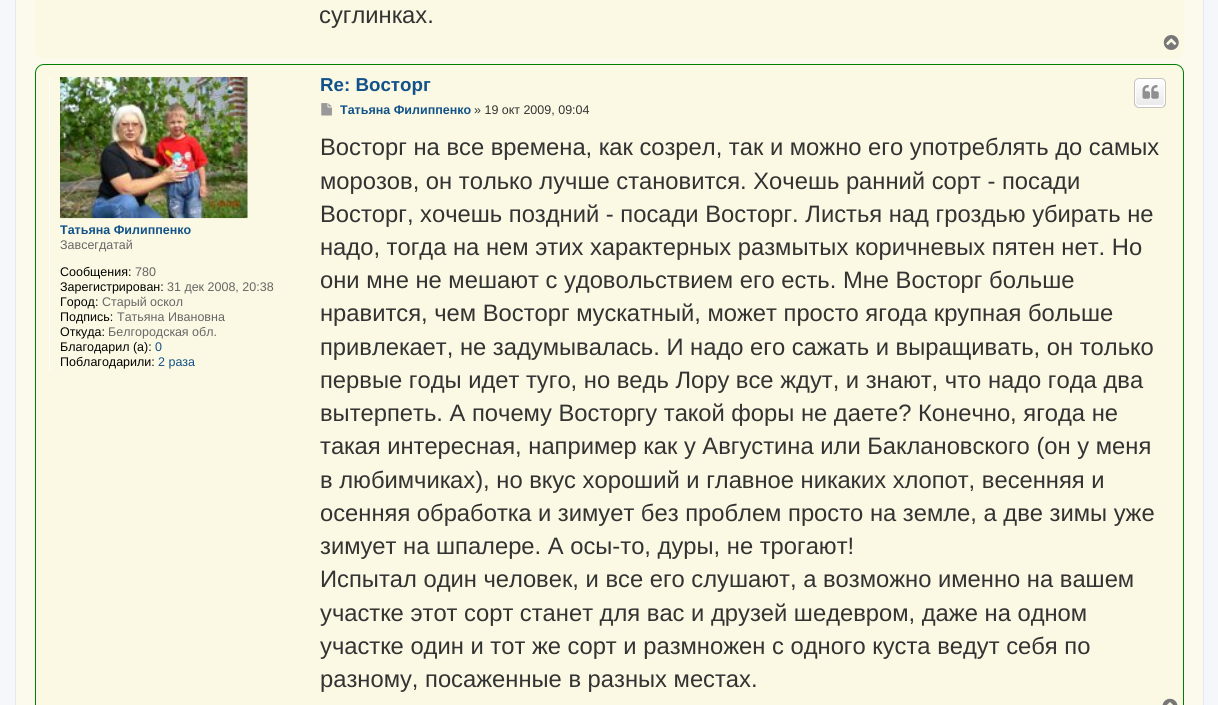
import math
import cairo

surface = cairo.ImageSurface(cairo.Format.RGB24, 1218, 705)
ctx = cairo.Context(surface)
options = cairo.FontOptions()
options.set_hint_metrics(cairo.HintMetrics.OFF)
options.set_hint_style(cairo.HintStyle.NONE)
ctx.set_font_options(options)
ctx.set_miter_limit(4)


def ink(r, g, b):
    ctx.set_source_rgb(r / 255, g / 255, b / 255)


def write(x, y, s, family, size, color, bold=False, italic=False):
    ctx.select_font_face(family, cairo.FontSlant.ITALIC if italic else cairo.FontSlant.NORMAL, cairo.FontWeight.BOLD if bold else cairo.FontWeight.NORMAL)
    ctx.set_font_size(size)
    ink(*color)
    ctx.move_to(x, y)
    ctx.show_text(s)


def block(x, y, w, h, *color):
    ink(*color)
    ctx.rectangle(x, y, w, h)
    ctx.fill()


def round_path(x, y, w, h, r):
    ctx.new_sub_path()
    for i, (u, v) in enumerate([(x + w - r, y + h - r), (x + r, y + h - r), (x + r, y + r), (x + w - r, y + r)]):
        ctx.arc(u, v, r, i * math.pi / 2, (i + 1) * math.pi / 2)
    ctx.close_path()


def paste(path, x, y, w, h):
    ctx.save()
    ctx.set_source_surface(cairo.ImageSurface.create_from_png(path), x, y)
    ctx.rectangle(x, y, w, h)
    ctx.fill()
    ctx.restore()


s1 = dict(family="Liberation Sans", size=23.75, color=(51, 51, 51))
s2 = dict(family="Liberation Sans", size=12.5, color=(16, 82, 137), bold=True)
s3 = dict(family="Liberation Sans", size=12.5, color=(102, 102, 102))
s4 = dict(family="Liberation Sans", size=12.5, color=(0, 0, 0))
s5 = dict(family="Liberation Sans", size=12.5, color=(16, 82, 137))
s6 = dict(family="Liberation Sans", size=18.75, color=(16, 82, 137), bold=True)
s7 = dict(family="Liberation Sans", size=12.5, color=(51, 51, 51))

ink(245, 247, 250)
ctx.paint()
ink(252, 250, 237)
ctx.rectangle(15.5, -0.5, 1188, 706)
ctx.fill_preserve()
ink(230, 233, 237)
ctx.set_line_width(1)
ctx.stroke()
ink(251, 248, 227)
round_path(35, -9, 1149, 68, 9)
ctx.fill()
write(319, 23, "суглинках.", **s1)
paste("pic1.png", 1163, 35, 16, 15)
ink(251, 248, 227)
round_path(35.5, 64.5, 1148, 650, 8.5)
ctx.fill_preserve()
ink(0, 128, 0)
ctx.stroke()
block(49, 78, 1, 292, 255, 255, 255)
paste("pic2.png", 60, 77, 188, 142)
write(60, 234, "Татьяна Филиппенко", **s2)
write(60, 249, "Завсегдатай", **s3)
write(60, 276, "Сообщения:", **s4)
write(135, 276, "780", **s3)
write(60, 291, "Зарегистрирован:", **s4)
write(167, 291, "31 дек 2008, 20:38", **s3)
write(60, 306, "Город:", **s4)
write(102, 306, "Старый оскол", **s3)
write(60, 321, "Подпись:", **s4)
write(117, 321, "Татьяна Ивановна", **s3)
write(60, 336, "Откуда:", **s4)
write(108, 336, "Белгородская обл.", **s3)
write(60, 351, "Благодарил (а):", **s4)
write(155, 351, "0", **s5)
write(60, 366, "Поблагодарили:", **s4)
write(158, 366, "2 раза", **s5)
write(320, 91, "Re: Восторг", **s6)
ctx.save()
round_path(1134, 78, 32, 30, 5)
ctx.clip()
gradient = cairo.LinearGradient(1150, 79, 1150, 106)
gradient.add_color_stop_rgba(0, 1, 1, 1, 1)
gradient.add_color_stop_rgba(1, 0.914, 0.914, 0.914, 1)
ctx.set_source(gradient)
ctx.rectangle(1134, 79, 32, 27)
ctx.fill()
gradient = cairo.LinearGradient(1150, 106, 1150, 134)
gradient.add_color_stop_rgba(0, 1, 1, 1, 1)
gradient.add_color_stop_rgba(1, 0.914, 0.914, 0.914, 1)
ctx.set_source(gradient)
ctx.rectangle(1134, 106, 32, 2)
ctx.fill()
ctx.restore()
round_path(1135.5, 79.5, 29, 26, 3.5)
ink(255, 255, 255)
ctx.stroke()
round_path(1134.5, 78.5, 31, 29, 4.5)
ink(199, 195, 191)
ctx.stroke()
paste("pic3.png", 1142, 85, 17, 14)
paste("pic4.png", 321, 103, 11, 13)
write(340, 114, "Татьяна Филиппенко", **s2)
write(474, 114, "» 19 окт 2009, 09:04", **s7)
write(320, 155, "Восторг на все времена, как созрел, так и можно его употреблять до самых", **s1)
write(320, 189, "морозов, он только лучше становится. Хочешь ранний сорт - посади", **s1)
write(320, 222, "Восторг, хочешь поздний - посади Восторг. Листья над гроздью убирать не", **s1)
write(320, 255, "надо, тогда на нем этих характерных размытых коричневых пятен нет. Но", **s1)
write(320, 288, "они мне не мешают с удовольствием его есть. Мне Восторг больше", **s1)
write(320, 321, "нравится, чем Восторг мускатный, может просто ягода крупная больше", **s1)
write(320, 355, "привлекает, не задумывалась. И надо его сажать и выращивать, он только", **s1)
write(320, 388, "первые годы идет туго, но ведь Лору все ждут, и знают, что надо года два", **s1)
write(320, 421, "вытерпеть. А почему Восторгу такой форы не даете? Конечно, ягода не", **s1)
write(320, 454, "такая интересная, например как у Августина или Баклановского (он у меня", **s1)
write(320, 488, "в любимчиках), но вкус хороший и главное никаких хлопот, весенняя и", **s1)
write(320, 521, "осенняя обработка и зимует без проблем просто на земле, а две зимы уже", **s1)
write(320, 554, "зимует на шпалере. А осы-то, дуры, не трогают!", **s1)
write(320, 587, "Испытал один человек, и все его слушают, а возможно именно на вашем", **s1)
write(320, 621, "участке этот сорт станет для вас и друзей шедевром, даже на одном", **s1)
write(320, 654, "участке один и тот же сорт и размножен с одного куста ведут себя по", **s1)
write(320, 687, "разному, посаженные в разных местах.", **s1)
paste("pic5.png", 1162, 698, 16, 7)
surface.write_to_png("screenshot.png")
